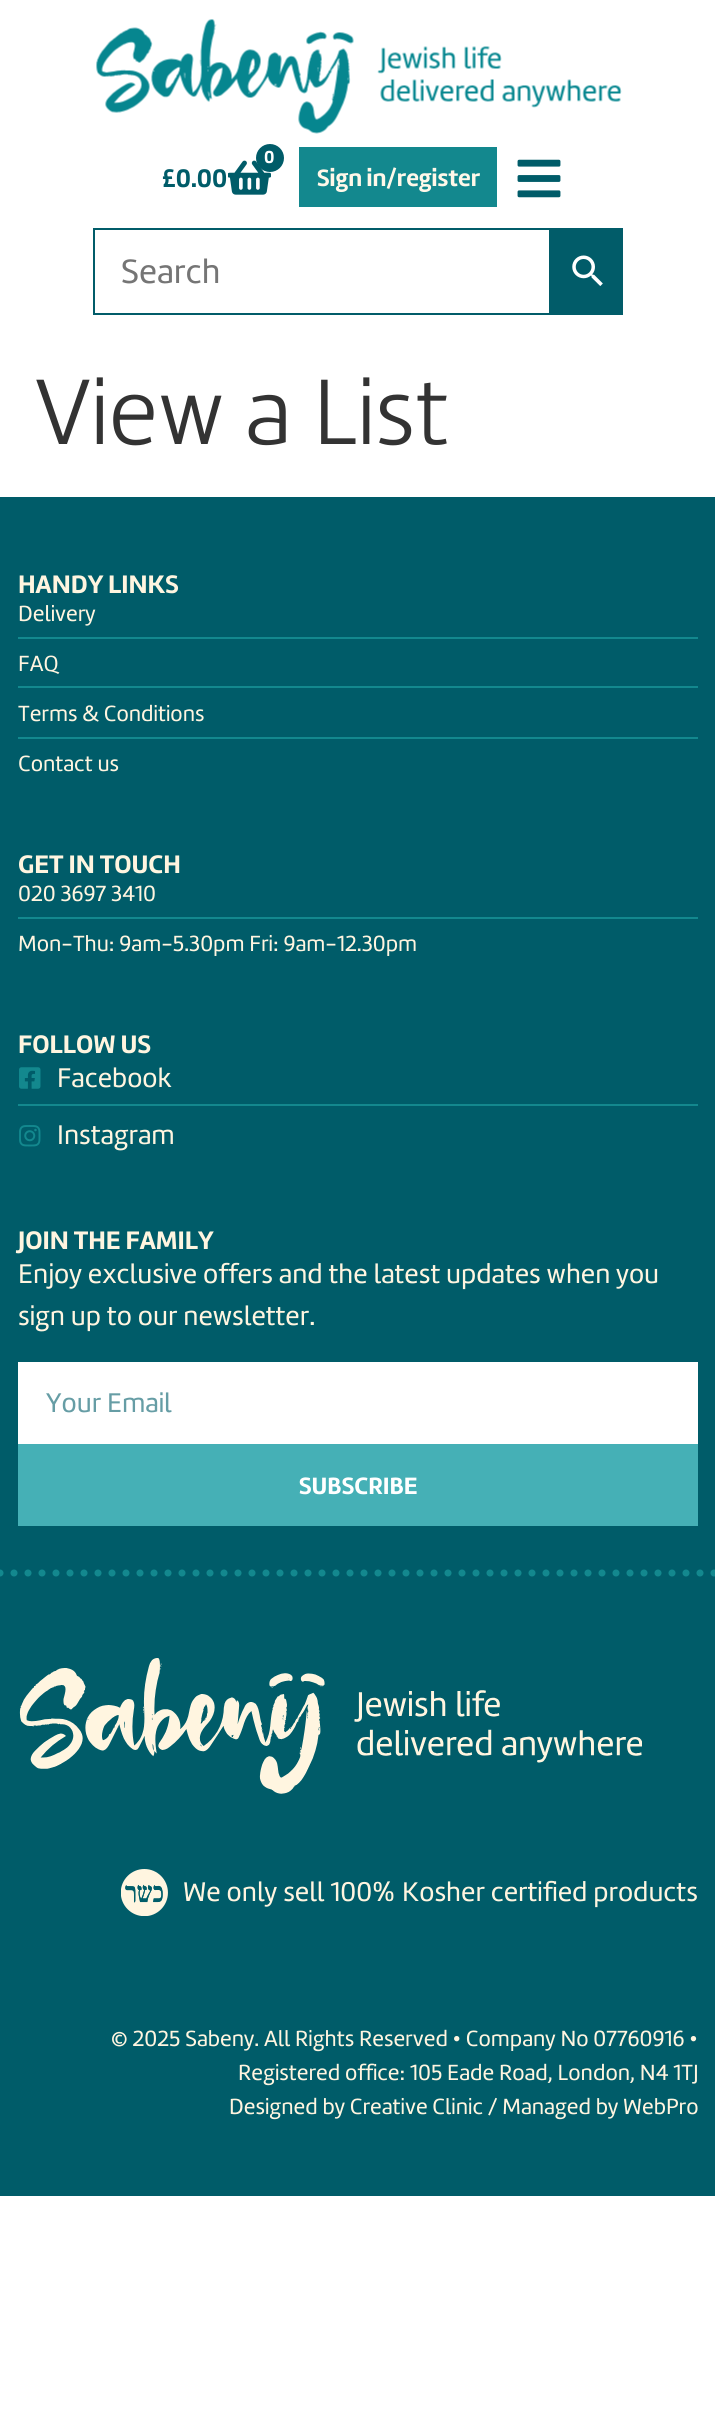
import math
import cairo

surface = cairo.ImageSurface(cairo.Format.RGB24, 715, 2409)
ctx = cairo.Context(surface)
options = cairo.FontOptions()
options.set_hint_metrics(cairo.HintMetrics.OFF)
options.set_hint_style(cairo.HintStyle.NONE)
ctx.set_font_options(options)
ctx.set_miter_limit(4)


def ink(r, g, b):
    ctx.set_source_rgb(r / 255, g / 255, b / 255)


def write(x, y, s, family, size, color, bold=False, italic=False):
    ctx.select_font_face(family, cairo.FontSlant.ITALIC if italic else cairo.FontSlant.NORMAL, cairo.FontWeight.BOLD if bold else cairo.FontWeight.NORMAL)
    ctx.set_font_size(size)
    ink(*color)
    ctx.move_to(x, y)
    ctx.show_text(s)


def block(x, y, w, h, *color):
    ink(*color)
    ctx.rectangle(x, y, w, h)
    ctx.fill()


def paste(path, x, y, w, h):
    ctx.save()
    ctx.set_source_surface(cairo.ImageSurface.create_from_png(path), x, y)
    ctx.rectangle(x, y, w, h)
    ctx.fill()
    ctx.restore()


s1 = dict(family="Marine", size=18, color=(255, 255, 255), bold=True)
s2 = dict(family="Marine", size=26.25, color=(0, 92, 105), bold=True)
s3 = dict(family="Marine", size=24.5, color=(255, 248, 233), bold=True)
s4 = dict(family="Marine", size=35, color=(117, 117, 117))
s5 = dict(family="Marine Light", size=96.25, color=(51, 51, 51))
s6 = dict(family="Marine", size=26.25, color=(255, 245, 224), bold=True)
s7 = dict(family="Marine", size=22.75, color=(255, 245, 224))
s8 = dict(family="Marine", size=28, color=(255, 245, 224))
s9 = dict(family="Marine", size=28, color=(102, 157, 165))
s10 = dict(family="Marine", size=24.5, color=(255, 255, 255), bold=True)

ink(255, 255, 255)
ctx.paint()
paste("pic1.png", 96, 19, 526, 115)
paste("pic2.png", 228, 160, 43, 35)
ink(0, 92, 105)
ctx.arc(270, 158, 14, 0, 2 * math.pi)
ctx.fill()
write(264, 163, "0", **s1)
write(162, 187, "£0.00", **s2)
block(299, 147, 198, 60, 19, 136, 142)
write(317, 186, "Sign in/register", **s3)
paste("pic3.png", 517, 159, 44, 39)
ctx.rectangle(94, 229, 456, 85)
ink(1, 92, 105)
ctx.stroke()
write(121, 283, "Search", **s4)
block(551, 228, 72, 87, 1, 92, 105)
paste("pic4.png", 572, 255, 31, 31)
write(35, 444, "View a List", **s5)
block(0, 497, 715, 1699, 0, 92, 105)
write(18, 593, "HANDY LINKS", **s6)
write(18, 621, "Delivery", **s7)
block(18, 637, 680, 2, 19, 136, 142)
write(18, 671, "FAQ", **s7)
block(18, 686, 680, 2, 19, 136, 142)
write(18, 721, "Terms & Conditions", **s7)
block(18, 737, 680, 2, 19, 136, 142)
write(18, 771, "Contact us", **s7)
write(18, 873, "GET IN TOUCH", **s6)
write(18, 901, "020 3697 3410", **s7)
block(18, 917, 680, 2, 19, 136, 142)
write(18, 951, "Mon-Thu: 9am-5.30pm Fri: 9am-12.30pm", **s7)
write(18, 1053, "FOLLOW US", **s6)
paste("pic5.png", 19, 1067, 22, 22)
write(57, 1087, "Facebook", **s8)
block(18, 1104, 680, 2, 19, 136, 142)
paste("pic6.png", 19, 1125, 22, 22)
write(57, 1144, "Instagram", **s8)
write(18, 1249, "JOIN THE FAMILY", **s6)
write(18, 1283, "Enjoy exclusive offers and the latest updates when you", **s8)
write(18, 1325, "sign up to our newsletter.", **s8)
block(18, 1362, 680, 82, 255, 255, 255)
write(46, 1412, "Your Email", **s9)
block(18, 1444, 680, 82, 69, 176, 182)
write(299, 1494, "SUBSCRIBE", **s10)
ctx.new_path()
ctx.move_to(0, 1573)
ctx.line_to(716, 1573)
ink(19, 136, 142)
ctx.set_line_width(7)
ctx.set_line_cap(cairo.LineCap.ROUND)
ctx.set_dash([0, 14])
ctx.stroke()
paste("pic7.png", 19, 1658, 623, 136)
paste("pic8.png", 121, 1869, 47, 47)
write(183, 1901, "We only sell 100% Kosher certified products", **s8)
write(111, 2046, "© 2025 Sabeny. All Rights Reserved • Company No 07760916 •", **s7)
write(238, 2080, "Registered office: 105 Eade Road, London, N4 1TJ", **s7)
write(229, 2114, "Designed by Creative Clinic / Managed by WebPro", **s7)
surface.write_to_png("screenshot.png")
